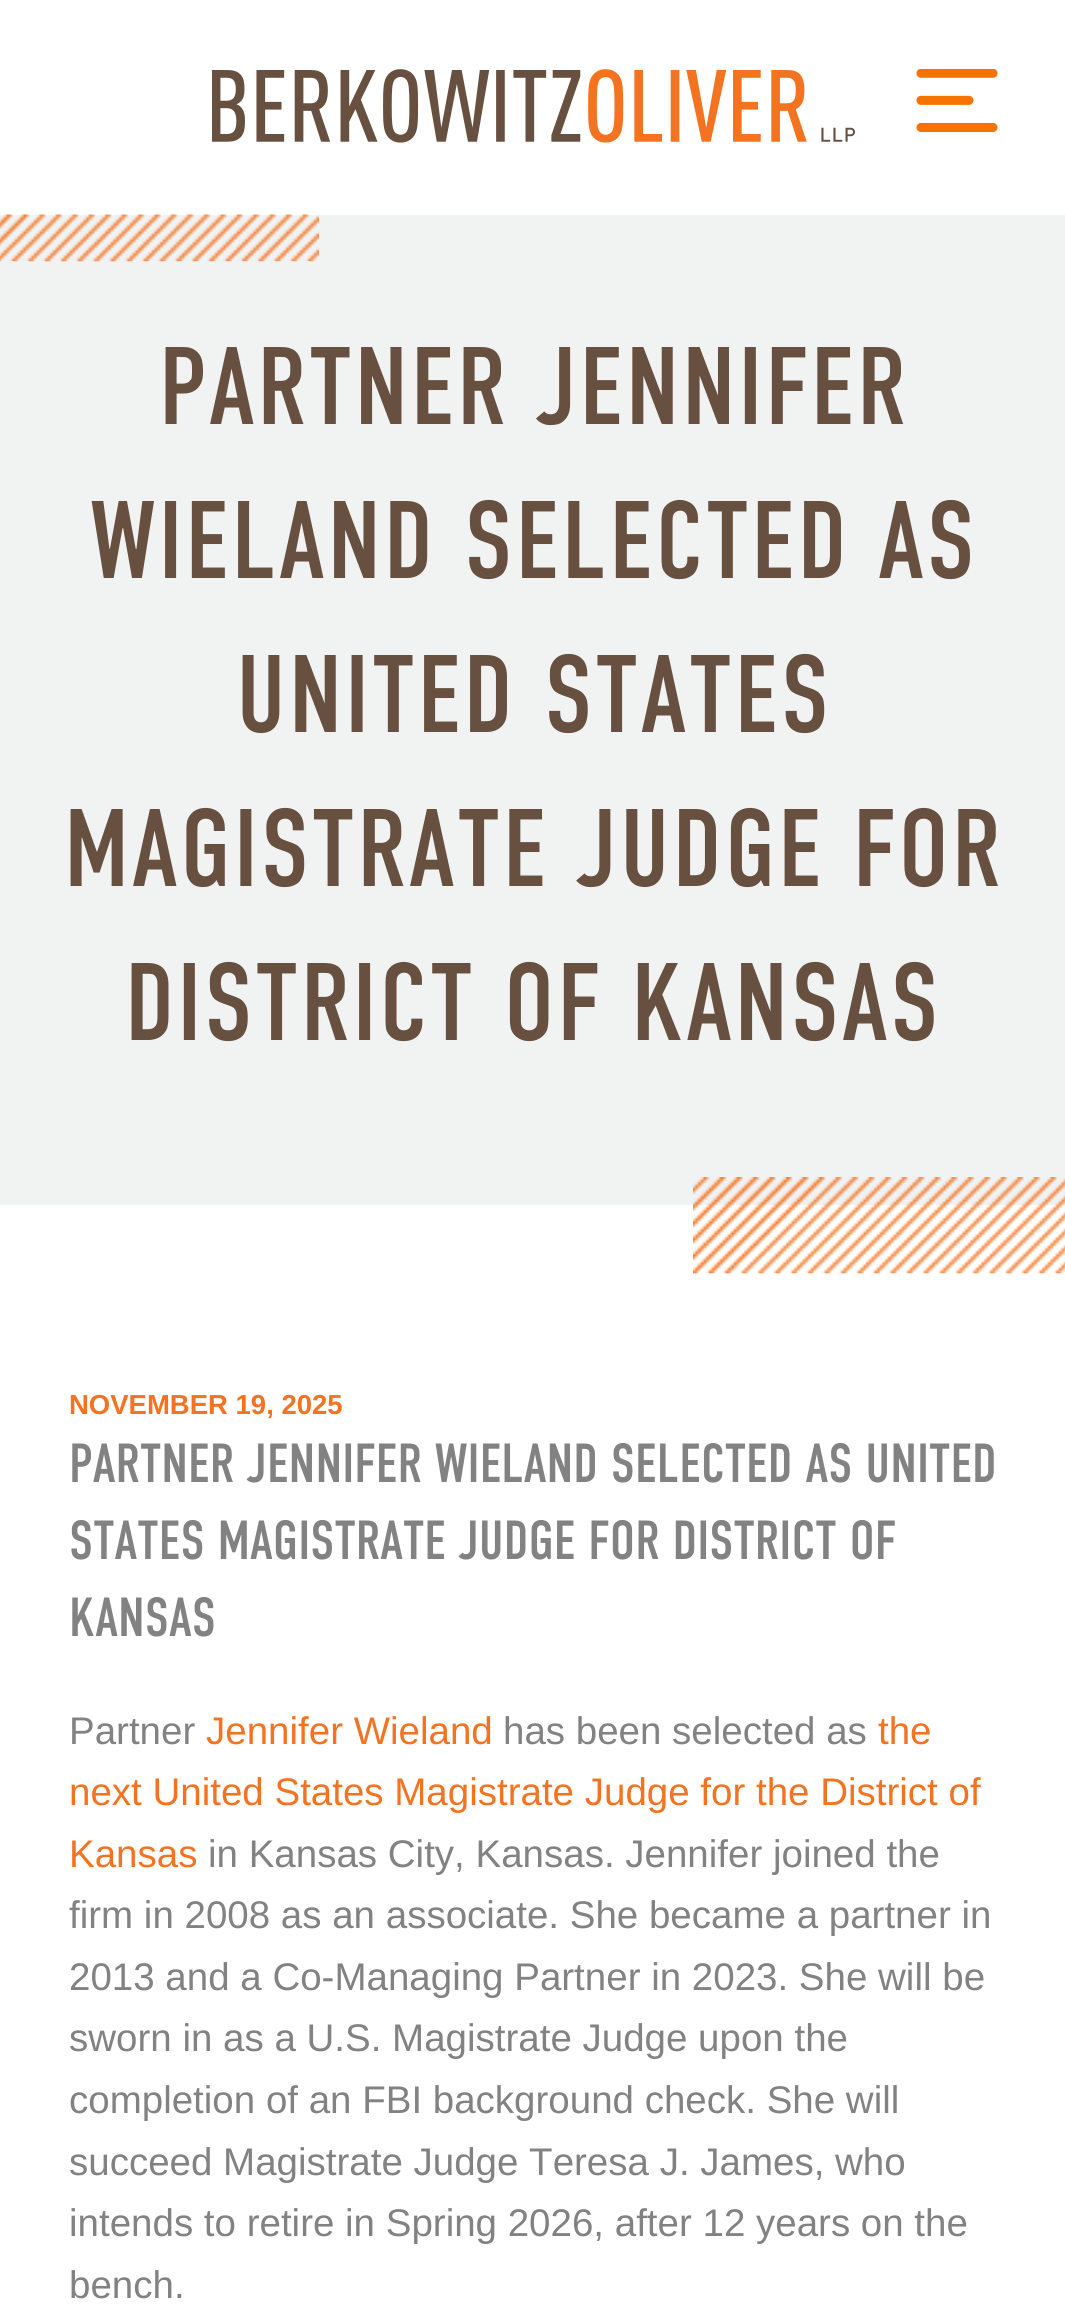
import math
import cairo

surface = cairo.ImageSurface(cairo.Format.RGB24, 1065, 2306)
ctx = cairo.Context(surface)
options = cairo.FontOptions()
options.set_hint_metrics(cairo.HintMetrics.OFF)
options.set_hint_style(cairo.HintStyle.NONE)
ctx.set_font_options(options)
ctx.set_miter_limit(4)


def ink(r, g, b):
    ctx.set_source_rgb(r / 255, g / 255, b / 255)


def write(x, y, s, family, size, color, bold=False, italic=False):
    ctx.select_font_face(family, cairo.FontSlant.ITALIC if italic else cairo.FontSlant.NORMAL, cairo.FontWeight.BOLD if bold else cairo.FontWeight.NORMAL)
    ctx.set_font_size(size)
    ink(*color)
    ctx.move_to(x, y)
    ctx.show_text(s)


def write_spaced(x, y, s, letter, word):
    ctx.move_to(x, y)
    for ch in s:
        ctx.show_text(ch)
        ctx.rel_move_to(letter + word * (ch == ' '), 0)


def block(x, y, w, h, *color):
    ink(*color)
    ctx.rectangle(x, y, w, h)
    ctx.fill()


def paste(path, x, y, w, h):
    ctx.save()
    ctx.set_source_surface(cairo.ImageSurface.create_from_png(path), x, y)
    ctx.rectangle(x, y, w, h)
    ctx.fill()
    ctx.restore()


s1 = dict(family="Liberation Sans", size=27.5, color=(243, 115, 33), bold=True)
s2 = dict(family="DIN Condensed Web", size=55, color=(130, 130, 130))
s3 = dict(family="Liberation Sans", size=38.5, color=(130, 130, 130))
s4 = dict(family="Liberation Sans", size=38.5, color=(243, 115, 33))

ink(255, 255, 255)
ctx.paint()
paste("pic1.png", 212, 69, 643, 74)
paste("pic2.png", 916, 69, 82, 63)
block(0, 215, 1065, 990, 241, 242, 242)
paste("pic3.png", 0, 214, 319, 48)
ctx.select_font_face("DIN Condensed Web")
ctx.set_font_size(110)
ink(104, 80, 64)
write_spaced(159, 424, "PARTNER JENNIFER", 2.75, 0)
write_spaced(90, 578, "WIELAND SELECTED AS", 2.75, 0)
write_spaced(236, 732, "UNITED STATES", 2.75, 0)
write_spaced(64, 886, "MAGISTRATE JUDGE FOR", 2.75, 0)
write_spaced(125, 1040, "DISTRICT OF KANSAS", 2.75, 0)
paste("pic4.png", 693, 1177, 372, 97)
write(69, 1414, "NOVEMBER 19, 2025", **s1)
write(69, 1482, "PARTNER JENNIFER WIELAND SELECTED AS UNITED", **s2)
write(69, 1559, "STATES MAGISTRATE JUDGE FOR DISTRICT OF", **s2)
write(69, 1636, "KANSAS", **s2)
write(69, 1744, "Partner", **s3)
write(206, 1744, "Jennifer Wieland", **s4)
write(503, 1744, "has been selected as", **s3)
write(878, 1744, "the", **s4)
write(69, 1805, "next United States Magistrate Judge for the District of", **s4)
write(69, 1867, "Kansas", **s4)
write(208, 1867, "in Kansas City, Kansas. Jennifer joined the", **s3)
write(69, 1928, "firm in 2008 as an associate. She became a partner in", **s3)
write(69, 1990, "2013 and a Co-Managing Partner in 2023. She will be", **s3)
write(69, 2051, "sworn in as a U.S. Magistrate Judge upon the", **s3)
write(69, 2113, "completion of an FBI background check. She will", **s3)
write(69, 2175, "succeed Magistrate Judge Teresa J. James, who", **s3)
write(69, 2236, "intends to retire in Spring 2026, after 12 years on the", **s3)
write(69, 2298, "bench.", **s3)
surface.write_to_png("screenshot.png")
